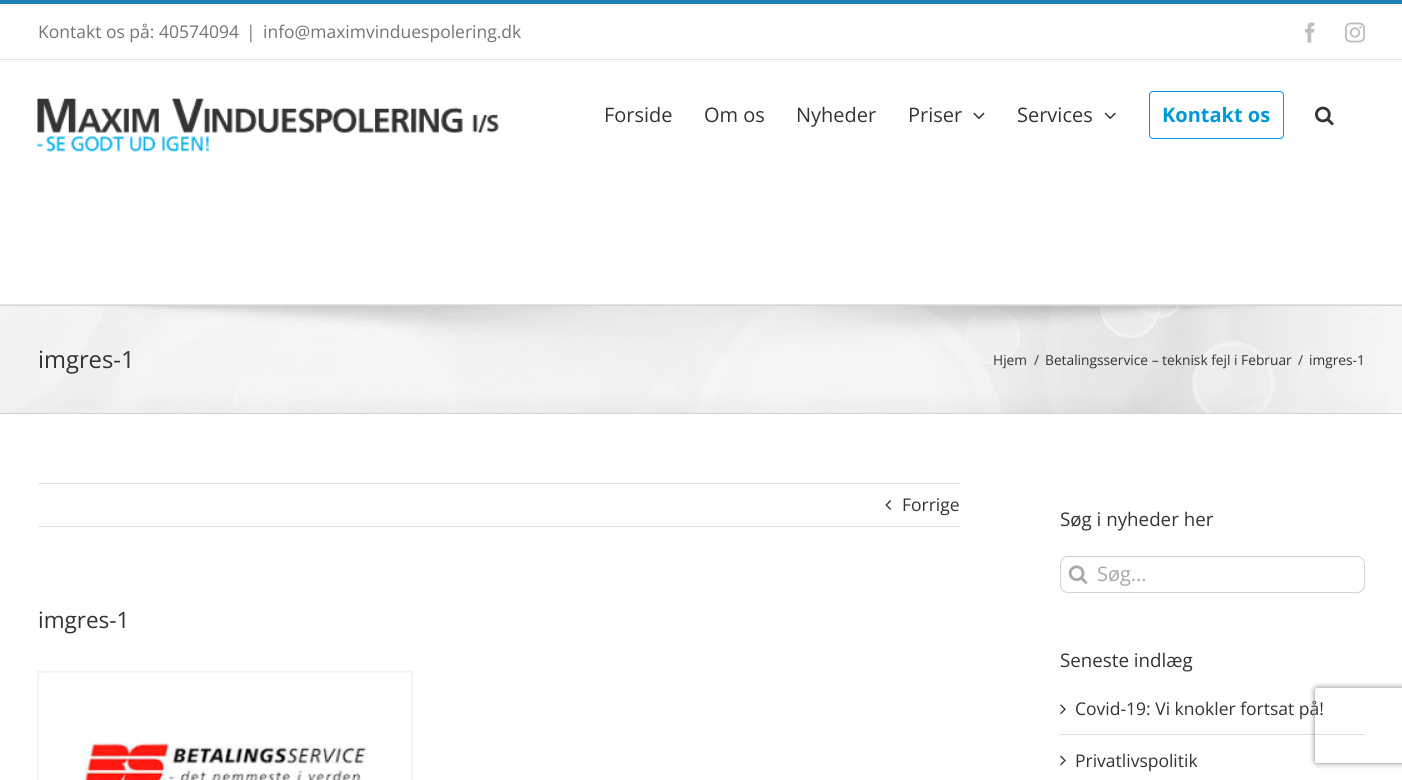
import math
import cairo

surface = cairo.ImageSurface(cairo.Format.RGB24, 1402, 780)
ctx = cairo.Context(surface)
options = cairo.FontOptions()
options.set_hint_metrics(cairo.HintMetrics.OFF)
options.set_hint_style(cairo.HintStyle.NONE)
ctx.set_font_options(options)
ctx.set_miter_limit(4)


def ink(r, g, b):
    ctx.set_source_rgb(r / 255, g / 255, b / 255)


def write(x, y, s, family, size, color, bold=False, italic=False):
    ctx.select_font_face(family, cairo.FontSlant.ITALIC if italic else cairo.FontSlant.NORMAL, cairo.FontWeight.BOLD if bold else cairo.FontWeight.NORMAL)
    ctx.set_font_size(size)
    ink(*color)
    ctx.move_to(x, y)
    ctx.show_text(s)


def block(x, y, w, h, *color):
    ink(*color)
    ctx.rectangle(x, y, w, h)
    ctx.fill()


def round_path(x, y, w, h, r):
    ctx.new_sub_path()
    for i, (u, v) in enumerate([(x + w - r, y + h - r), (x + r, y + h - r), (x + r, y + r), (x + w - r, y + r)]):
        ctx.arc(u, v, r, i * math.pi / 2, (i + 1) * math.pi / 2)
    ctx.close_path()


def blur_box(x, y, w, h, r, blur, alpha):
    ctx.push_group_with_content(cairo.Content.ALPHA)
    ctx.set_operator(cairo.Operator.SOURCE)
    for i in range(15, -16, -2):
        e = blur * i / 6
        if min(w, h) + 2 * e > 0:
            ctx.set_source_rgba(0, 0, 0, alpha * math.erfc((i - 1) / 8.5) / 2)
            round_path(x - e, y - e, w + 2 * e, h + 2 * e, max(0, min(r + e + blur * .6, min(w, h) / 2 + e)))
            ctx.fill()
    ctx.mask(ctx.pop_group())


def paste(path, x, y, w, h):
    ctx.save()
    ctx.set_source_surface(cairo.ImageSurface.create_from_png(path), x, y)
    ctx.rectangle(x, y, w, h)
    ctx.fill()
    ctx.restore()


s1 = dict(family="Open Sans", size=17.5, color=(116, 116, 116))
s2 = dict(family="Open Sans", size=20, color=(51, 51, 51))
s3 = dict(family="Open Sans", size=20, color=(2, 152, 216), bold=True)
s4 = dict(family="Open Sans", size=23.75, color=(51, 51, 51))
s5 = dict(family="Open Sans", size=13.75, color=(51, 51, 51))
s6 = dict(family="Open Sans", size=17.5, color=(51, 51, 51))
s7 = dict(family="Open Sans", size=22.5, color=(51, 51, 51))
s8 = dict(family="Open Sans", size=18.75, color=(51, 51, 51))
s9 = dict(family="Open Sans", size=20, color=(170, 169, 169))

ink(255, 255, 255)
ctx.paint()
block(0, 0, 1402, 4, 26, 128, 182)
block(0, 59, 1402, 1, 229, 229, 229)
write(38, 38, "Kontakt os på: 40574094", **s1)
write(246, 38, "|", **s1)
write(263, 38, "info@maximvinduespolering.dk", **s1)
paste("pic1.png", 1305, 22, 10, 21)
paste("pic2.png", 1345, 22, 20, 21)
block(0, 304, 1402, 1, 229, 229, 229)
paste("pic3.png", 37, 98, 462, 54)
write(604, 122, "Forside", **s2)
write(704, 122, "Om os", **s2)
write(796, 122, "Nyheder", **s2)
write(908, 122, "Priser", **s2)
paste("pic4.png", 973, 112, 12, 8)
write(1017, 122, "Services", **s2)
paste("pic5.png", 1104, 112, 12, 8)
round_path(1149.5, 91.5, 134, 47, 3.5)
ink(2, 152, 216)
ctx.set_line_width(1)
ctx.stroke()
write(1162, 122, "Kontakt os", **s3)
paste("pic6.png", 1315, 106, 19, 20)
block(0, 306, 1402, 107, 246, 246, 246)
paste("pic7.png", 0, 306, 1387, 107)
block(0, 305, 1402, 1, 210, 211, 212)
block(0, 413, 1402, 1, 210, 211, 212)
write(38, 368, "imgres-1", **s4)
write(993, 365, "Hjem", **s5)
write(1034, 365, "/", **s5)
write(1045, 365, "Betalingsservice – teknisk fejl i Februar", **s5)
write(1298, 365, "/", **s5)
write(1309, 365, "imgres-1", **s5)
block(38, 483, 922, 1, 224, 222, 222)
block(38, 526, 922, 1, 224, 222, 222)
paste("pic8.png", 885, 500, 7, 10)
write(902, 511, "Forrige", **s6)
write(38, 628, "imgres-1", **s7)
paste("pic9.png", 37, 671, 376, 109)
write(1060, 526, "Søg i nyheder her", **s8)
round_path(1060.5, 556.5, 304, 36, 7.5)
ink(210, 210, 210)
ctx.stroke()
paste("pic10.png", 1068, 565, 20, 19)
write(1097, 581, "Søg...", **s9)
write(1060, 667, "Seneste indlæg", **s8)
block(1060, 734, 305, 1, 224, 222, 222)
paste("pic11.png", 1060, 704, 6, 10)
write(1075, 715, "Covid-19: Vi knokler fortsat på!", **s6)
paste("pic12.png", 1060, 755, 6, 11)
write(1075, 767, "Privatlivspolitik", **s6)
ctx.save()
ctx.set_fill_rule(cairo.FillRule.EVEN_ODD)
ctx.new_path()
ctx.move_to(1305, 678)
ctx.line_to(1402, 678)
ctx.line_to(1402, 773)
ctx.line_to(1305, 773)
ctx.close_path()
ctx.move_to(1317.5, 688)
ctx.line_to(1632.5, 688)
ctx.curve_to(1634, 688, 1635, 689, 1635, 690.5)
ctx.line_to(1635, 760.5)
ctx.curve_to(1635, 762, 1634, 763, 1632.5, 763)
ctx.line_to(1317.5, 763)
ctx.curve_to(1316, 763, 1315, 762, 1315, 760.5)
ctx.line_to(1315, 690.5)
ctx.curve_to(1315, 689, 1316, 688, 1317.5, 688)
ctx.close_path()
ctx.clip()
ink(128, 128, 128)
blur_box(1315, 688, 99, 75, 2.5, 3, 1)
ctx.restore()
surface.write_to_png("screenshot.png")
